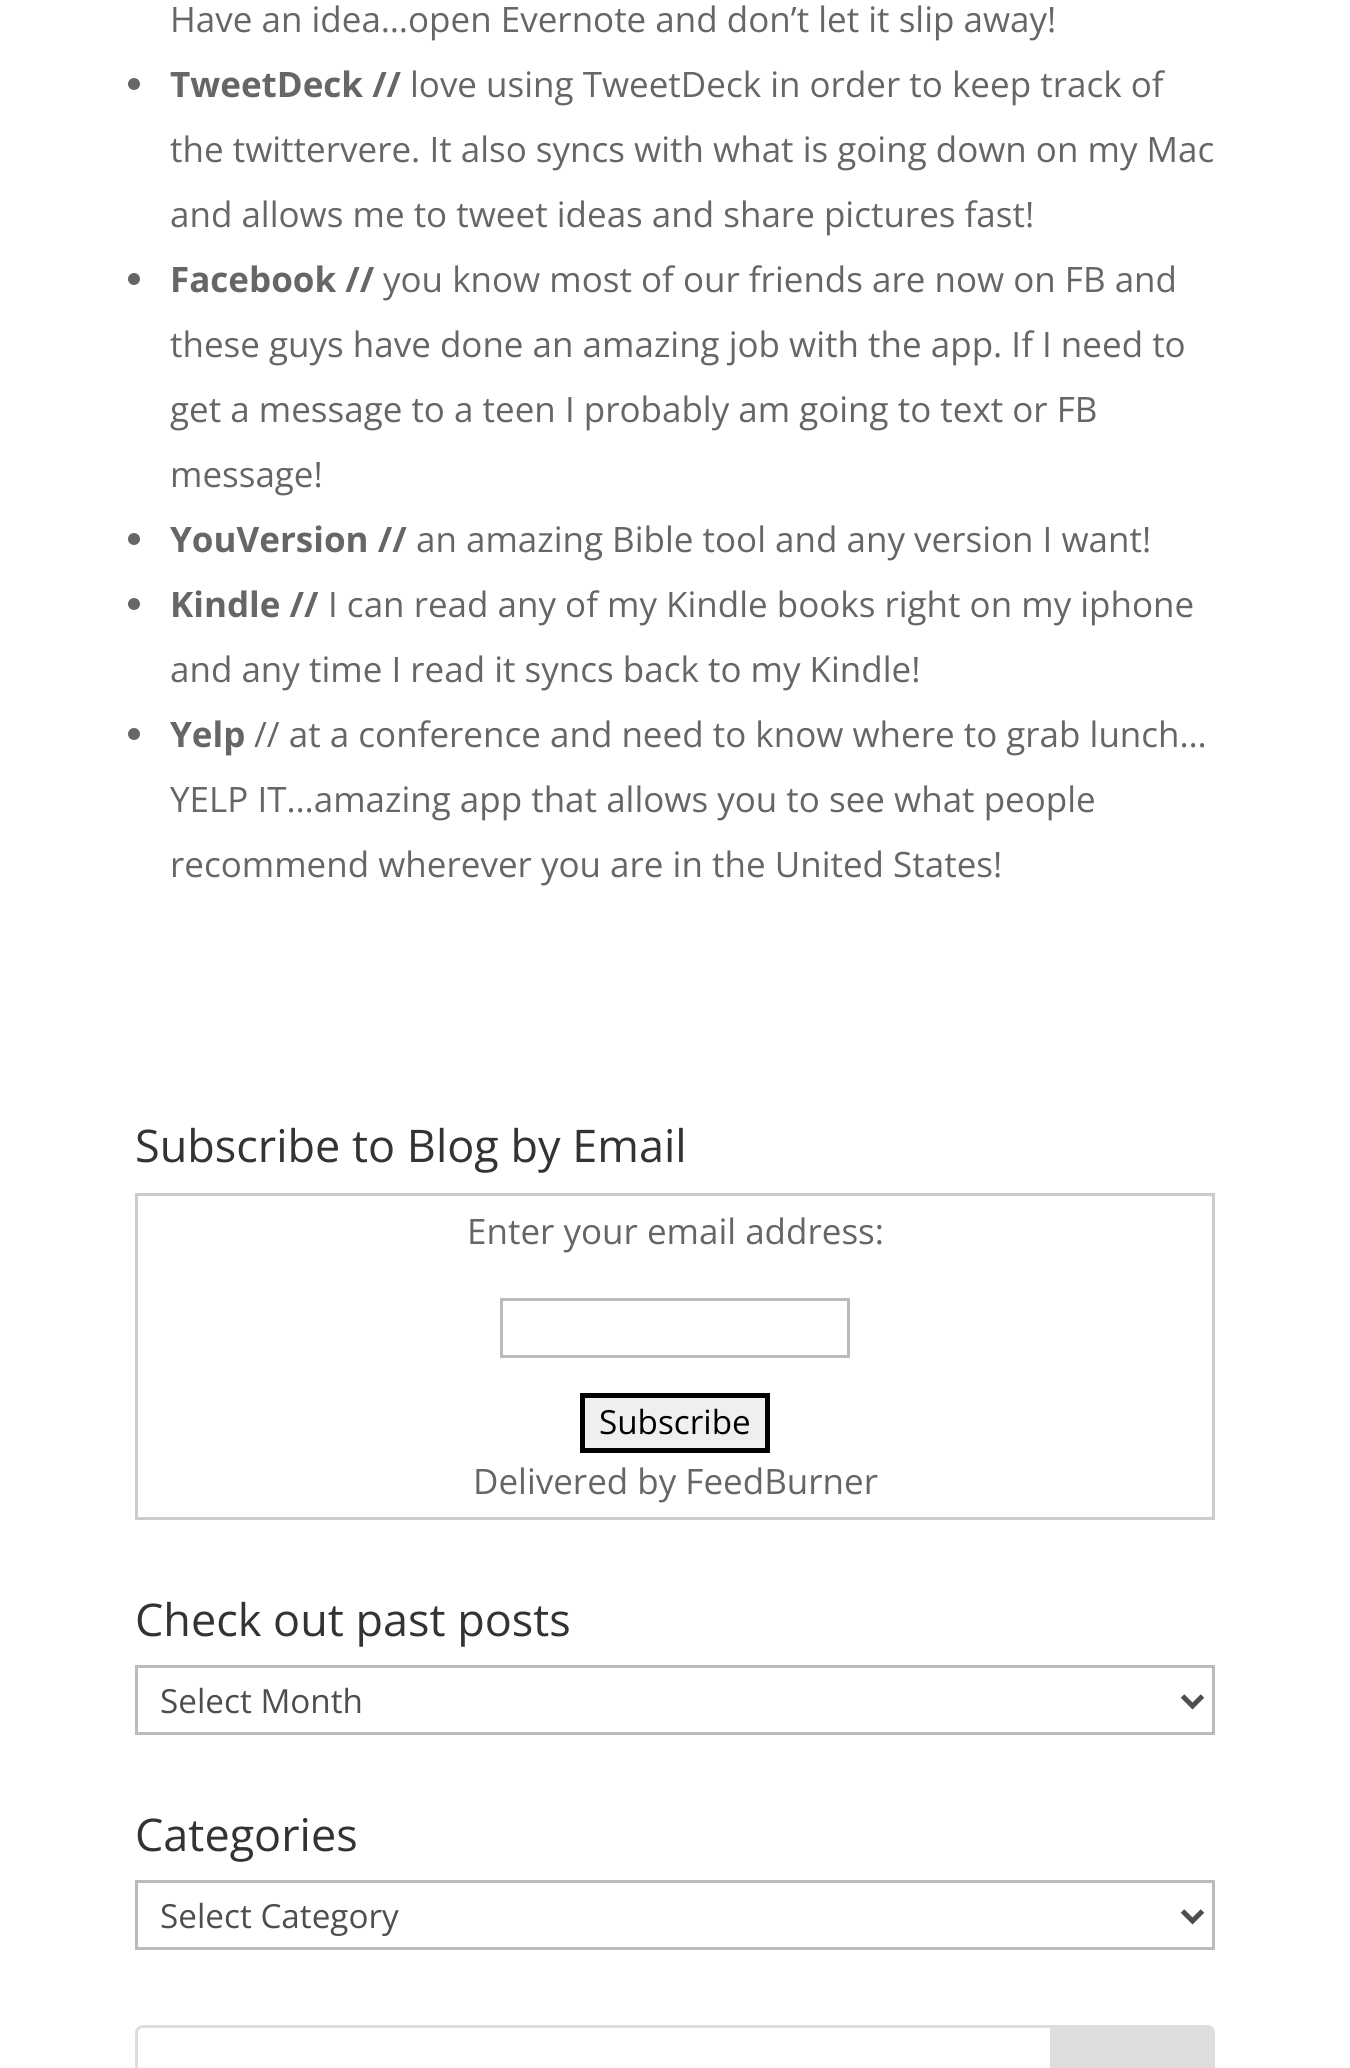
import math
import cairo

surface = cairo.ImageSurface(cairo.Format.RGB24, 1350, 2068)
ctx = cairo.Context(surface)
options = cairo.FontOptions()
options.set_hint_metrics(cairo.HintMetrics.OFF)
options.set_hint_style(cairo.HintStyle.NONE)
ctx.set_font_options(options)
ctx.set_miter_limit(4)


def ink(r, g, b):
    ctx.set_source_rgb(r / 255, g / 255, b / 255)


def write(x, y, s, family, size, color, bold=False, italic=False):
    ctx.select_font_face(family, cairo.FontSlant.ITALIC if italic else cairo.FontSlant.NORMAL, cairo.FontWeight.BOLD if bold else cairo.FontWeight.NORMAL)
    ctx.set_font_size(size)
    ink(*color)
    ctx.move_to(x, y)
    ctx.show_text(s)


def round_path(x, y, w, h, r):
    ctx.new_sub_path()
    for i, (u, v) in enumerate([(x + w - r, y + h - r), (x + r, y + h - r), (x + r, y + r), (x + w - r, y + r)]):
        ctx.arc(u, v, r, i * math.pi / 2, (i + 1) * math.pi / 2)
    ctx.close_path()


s1 = dict(family="Open Sans", size=35, color=(102, 102, 102))
s2 = dict(family="Open Sans", size=35, color=(102, 102, 102), bold=True)
s3 = dict(family="Open Sans", size=45, color=(51, 51, 51))
s4 = dict(family="Open Sans", size=33.25, color=(0, 0, 0))
s5 = dict(family="Open Sans", size=33.25, color=(78, 78, 78))

ink(255, 255, 255)
ctx.paint()
write(170, 32, "Have an idea…open Evernote and don’t let it slip away!", **s1)
ctx.new_path()
ctx.arc(134, 84, 6, 0, 2 * math.pi)
ctx.fill()
write(170, 97, "TweetDeck //", **s2)
write(410, 97, "love using TweetDeck in order to keep track of", **s1)
write(170, 162, "the twittervere. It also syncs with what is going down on my Mac", **s1)
write(170, 227, "and allows me to tweet ideas and share pictures fast!", **s1)
ctx.new_path()
ctx.arc(134, 279, 6, 0, 2 * math.pi)
ctx.fill()
write(170, 292, "Facebook //", **s2)
write(383, 292, "you know most of our friends are now on FB and", **s1)
write(170, 357, "these guys have done an amazing job with the app. If I need to", **s1)
write(170, 422, "get a message to a teen I probably am going to text or FB", **s1)
write(170, 487, "message!", **s1)
ctx.new_path()
ctx.arc(134, 539, 6, 0, 2 * math.pi)
ctx.fill()
write(170, 552, "YouVersion //", **s2)
write(416, 552, "an amazing Bible tool and any version I want!", **s1)
ctx.new_path()
ctx.arc(134, 604, 6, 0, 2 * math.pi)
ctx.fill()
write(170, 617, "Kindle //", **s2)
write(328, 617, "I can read any of my Kindle books right on my iphone", **s1)
write(170, 682, "and any time I read it syncs back to my Kindle!", **s1)
ctx.new_path()
ctx.arc(134, 734, 6, 0, 2 * math.pi)
ctx.fill()
write(170, 747, "Yelp", **s2)
write(254, 747, "// at a conference and need to know where to grab lunch…", **s1)
write(170, 812, "YELP IT…amazing app that allows you to see what people", **s1)
write(170, 877, "recommend wherever you are in the United States!", **s1)
write(135, 1162, "Subscribe to Blog by Email", **s3)
ctx.rectangle(136.5, 1194.5, 1077, 324)
ink(204, 204, 204)
ctx.set_line_width(3)
ctx.stroke()
write(467, 1244, "Enter your email address:", **s1)
ctx.rectangle(501.5, 1299.5, 347, 57)
ink(187, 187, 187)
ctx.stroke()
ink(239, 239, 239)
ctx.rectangle(582.5, 1395.5, 185, 55)
ctx.fill_preserve()
ink(0, 0, 0)
ctx.set_line_width(5)
ctx.stroke()
write(599, 1434, "Subscribe", **s4)
write(473, 1494, "Delivered by FeedBurner", **s1)
write(135, 1636, "Check out past posts", **s3)
ctx.rectangle(136.5, 1666.5, 1077, 67)
ink(187, 187, 187)
ctx.set_line_width(3)
ctx.stroke()
ctx.new_path()
ctx.move_to(1182.5, 1696)
ctx.line_to(1192.5, 1706)
ctx.line_to(1202.5, 1696)
ink(78, 78, 78)
ctx.set_line_width(5)
ctx.stroke()
write(160, 1713, "Select Month", **s5)
write(135, 1851, "Categories", **s3)
ctx.rectangle(136.5, 1881.5, 1077, 67)
ink(187, 187, 187)
ctx.set_line_width(3)
ctx.stroke()
ctx.new_path()
ctx.move_to(1182.5, 1911)
ctx.line_to(1192.5, 1921)
ctx.line_to(1202.5, 1911)
ink(78, 78, 78)
ctx.set_line_width(5)
ctx.stroke()
write(160, 1928, "Select Category", **s5)
round_path(136.5, 2026.5, 1077, 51, 6.5)
ink(221, 221, 221)
ctx.set_line_width(3)
ctx.stroke()
ctx.new_path()
ctx.move_to(1051.5, 2026.5)
ctx.line_to(1207, 2026.5)
ctx.curve_to(1210.5, 2026.5, 1213.5, 2029.5, 1213.5, 2033)
ctx.line_to(1213.5, 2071)
ctx.curve_to(1213.5, 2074.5, 1210.5, 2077.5, 1207, 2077.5)
ctx.line_to(1051.5, 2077.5)
ctx.close_path()
ctx.fill_preserve()
ctx.stroke()
surface.write_to_png("screenshot.png")
